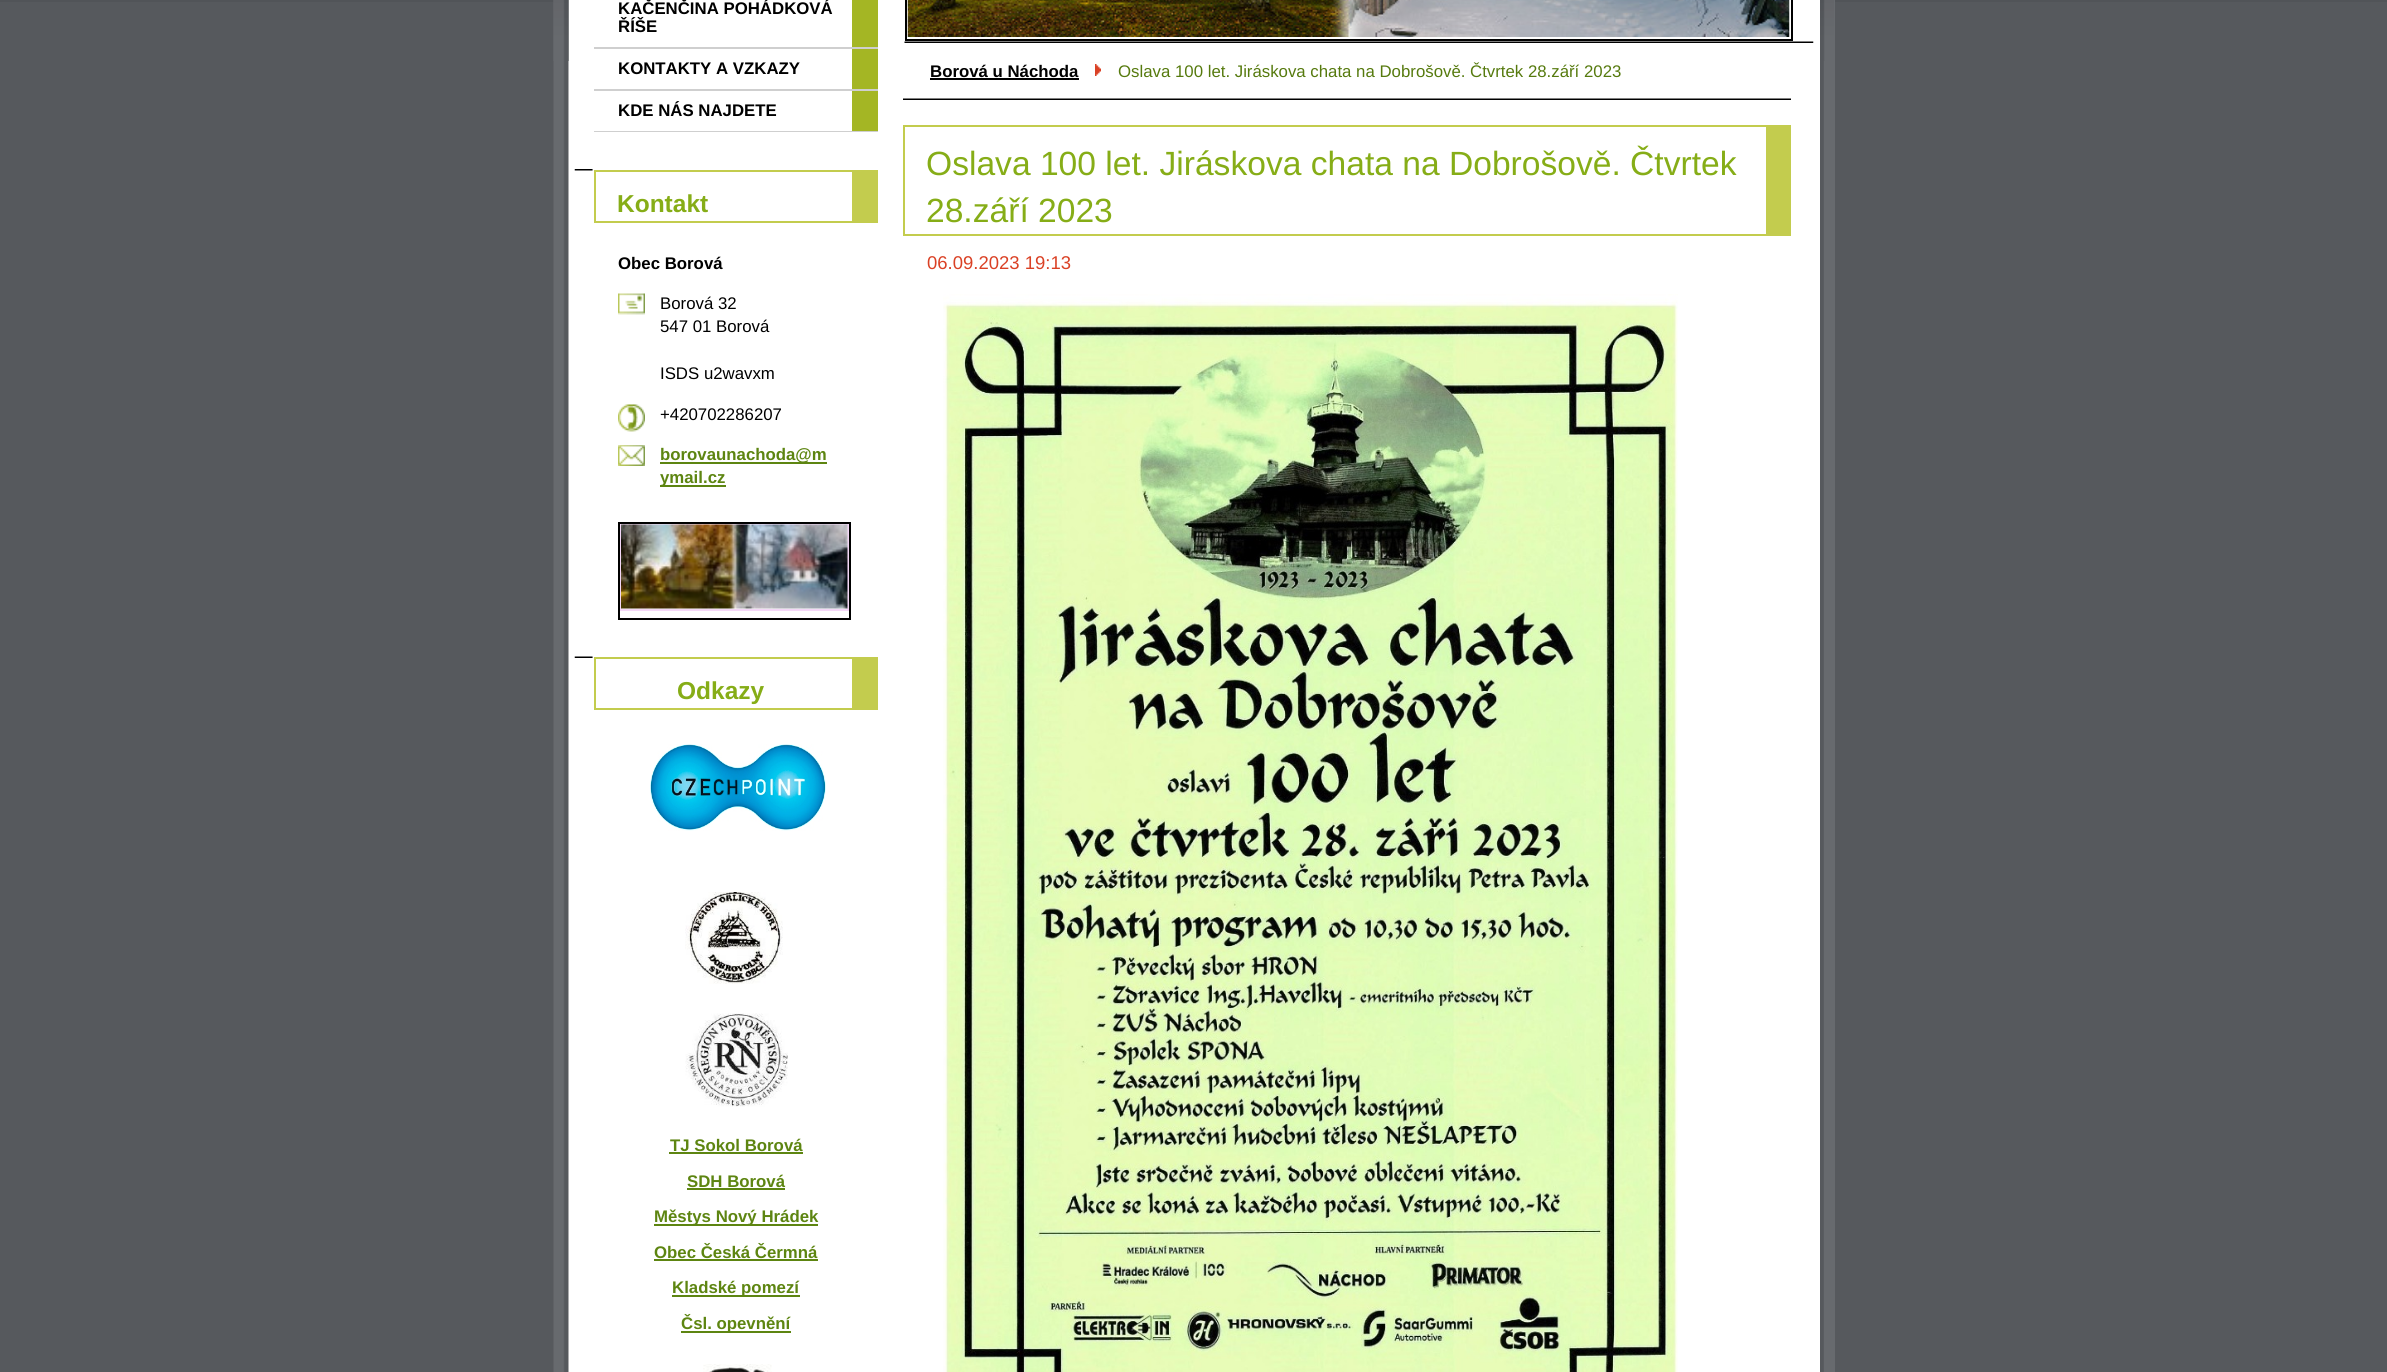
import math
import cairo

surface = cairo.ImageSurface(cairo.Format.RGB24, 2387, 1372)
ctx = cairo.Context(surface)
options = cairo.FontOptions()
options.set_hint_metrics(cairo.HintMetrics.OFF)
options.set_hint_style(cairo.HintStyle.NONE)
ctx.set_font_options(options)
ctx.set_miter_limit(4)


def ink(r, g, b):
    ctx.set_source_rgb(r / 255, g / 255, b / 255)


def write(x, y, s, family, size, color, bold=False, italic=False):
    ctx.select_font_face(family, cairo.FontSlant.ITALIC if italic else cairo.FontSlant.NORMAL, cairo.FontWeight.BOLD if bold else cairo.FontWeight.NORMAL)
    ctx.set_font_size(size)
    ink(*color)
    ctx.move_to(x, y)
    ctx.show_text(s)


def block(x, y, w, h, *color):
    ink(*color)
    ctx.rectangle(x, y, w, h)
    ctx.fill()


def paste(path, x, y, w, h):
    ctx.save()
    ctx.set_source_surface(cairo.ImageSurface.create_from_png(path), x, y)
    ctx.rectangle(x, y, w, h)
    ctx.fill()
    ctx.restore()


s1 = dict(family="Liberation Sans", size=16.8, color=(0, 0, 0), bold=True)
s2 = dict(family="Liberation Sans", size=24.5, color=(134, 173, 23), bold=True)
s3 = dict(family="Liberation Sans", size=16.8, color=(0, 0, 0))
s4 = dict(family="Liberation Sans", size=16.8, color=(93, 133, 17), bold=True)
s5 = dict(family="Liberation Sans", size=16.8, color=(86, 122, 14))
s6 = dict(family="Liberation Sans", size=33.6, color=(134, 173, 23))
s7 = dict(family="Liberation Sans", size=18.5, color=(218, 65, 37))

ink(86, 89, 93)
ctx.paint()
block(0, 0, 2387, 2, 81, 84, 88)
block(1824, 0, 11, 1372, 103, 106, 110)
paste("pic1.png", 553, 0, 1271, 1372)
paste("pic2.png", 553, 0, 1281, 61)
block(1819, 0, 1, 1372, 255, 255, 255)
block(852, 0, 26, 131, 164, 182, 36)
block(594, 47, 284, 2, 207, 207, 207)
write(618, 14, "KAČENČINA POHÁDKOVÁ", **s1)
write(618, 32, "ŘÍŠE", **s1)
block(594, 89, 284, 2, 207, 207, 207)
write(618, 74, "KONTAKTY A VZKAZY", **s1)
block(594, 131, 284, 1, 207, 207, 207)
write(618, 116, "KDE NÁS NAJDETE", **s1)
paste("pic3.png", 574, 169, 19, 2)
block(594, 170, 258, 2, 195, 204, 78)
block(852, 170, 26, 51, 195, 204, 78)
block(594, 221, 284, 2, 195, 204, 78)
block(594, 170, 2, 52, 195, 204, 78)
write(617, 212, "Kontakt", **s2)
write(618, 269, "Obec Borová", **s1)
paste("pic4.png", 618, 293, 27, 22)
write(660, 309, "Borová 32", **s3)
write(660, 332, "547 01 Borová", **s3)
write(660, 379, "ISDS u2wavxm", **s3)
paste("pic5.png", 618, 404, 27, 28)
write(660, 420, "+420702286207", **s3)
paste("pic6.png", 618, 445, 27, 21)
block(660, 462, 167, 2, 93, 133, 17)
write(660, 460, "borovaunachoda@m", **s4)
block(660, 485, 66, 2, 93, 133, 17)
write(660, 483, "ymail.cz", **s4)
ctx.rectangle(619, 523, 231, 96)
ink(0, 0, 0)
ctx.stroke()
ctx.rectangle(621, 525, 227, 85)
ink(244, 216, 247)
ctx.stroke()
paste("pic7.png", 621, 524, 227, 85)
paste("pic8.png", 574, 656, 19, 2)
block(594, 657, 258, 2, 195, 204, 78)
block(852, 657, 26, 51, 195, 204, 78)
block(594, 708, 284, 2, 195, 204, 78)
block(594, 657, 2, 53, 195, 204, 78)
write(677, 699, "Odkazy", **s2)
paste("pic9.png", 650, 744, 176, 87)
paste("pic10.png", 685, 892, 98, 92)
paste("pic11.png", 685, 1013, 103, 94)
write(670, 1151, "TJ Sokol Borová", **s4)
block(669, 1152, 134, 2, 93, 133, 17)
write(687, 1187, "SDH Borová", **s4)
block(687, 1188, 98, 2, 93, 133, 17)
block(654, 1224, 164, 2, 93, 133, 17)
write(654, 1222, "Městys Nový Hrádek", **s4)
write(654, 1258, "Obec Česká Čermná", **s4)
block(654, 1259, 164, 2, 93, 133, 17)
block(672, 1295, 128, 2, 93, 133, 17)
write(672, 1293, "Kladské pomezí", **s4)
block(681, 1331, 110, 2, 93, 133, 17)
write(681, 1329, "Čsl. opevnění", **s4)
paste("pic12.png", 703, 1364, 69, 8)
paste("pic13.png", 904, 41, 910, 2)
ctx.rectangle(906, -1, 886, 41)
ink(0, 0, 0)
ctx.stroke()
paste("pic14.png", 907, 0, 883, 37)
paste("pic15.png", 903, 98, 888, 2)
write(930, 77, "Borová u Náchoda", **s1)
block(930, 78, 149, 2, 0, 0, 0)
paste("pic16.png", 1095, 64, 6, 12)
write(1118, 77, "Oslava 100 let. Jiráskova chata na Dobrošově. Čtvrtek 28.září 2023", **s5)
block(903, 125, 863, 2, 195, 204, 78)
block(1766, 125, 25, 109, 195, 204, 78)
block(903, 234, 888, 2, 195, 204, 78)
block(903, 125, 2, 111, 195, 204, 78)
write(926, 175, "Oslava 100 let. Jiráskova chata na Dobrošově. Čtvrtek", **s6)
write(926, 222, "28.září 2023", **s6)
write(927, 269, "06.09.2023 19:13", **s7)
paste("pic17.png", 943, 294, 735, 1078)
surface.write_to_png("screenshot.png")
